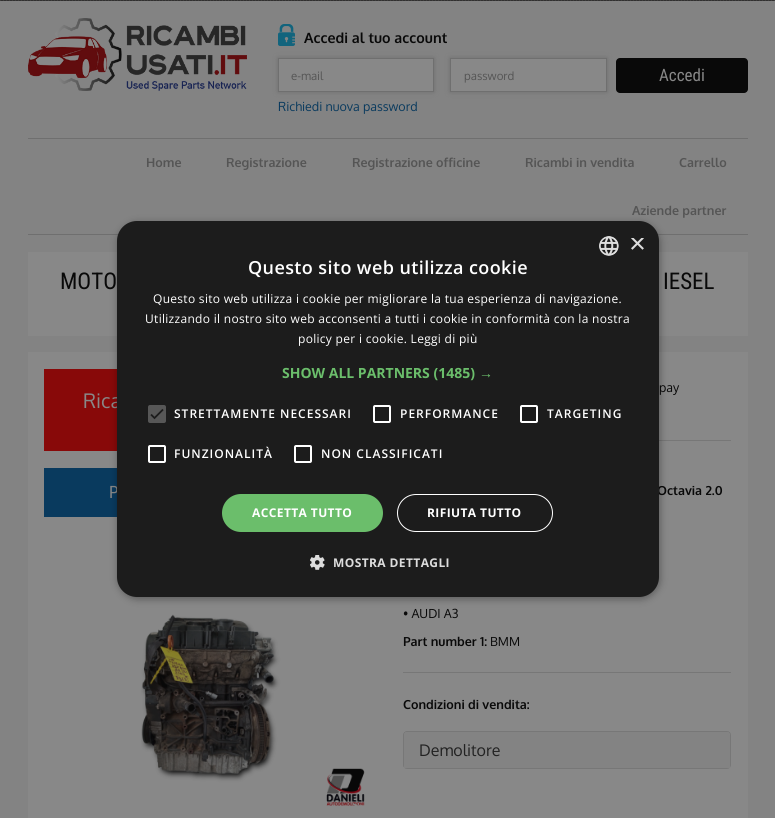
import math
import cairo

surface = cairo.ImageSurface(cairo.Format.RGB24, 775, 818)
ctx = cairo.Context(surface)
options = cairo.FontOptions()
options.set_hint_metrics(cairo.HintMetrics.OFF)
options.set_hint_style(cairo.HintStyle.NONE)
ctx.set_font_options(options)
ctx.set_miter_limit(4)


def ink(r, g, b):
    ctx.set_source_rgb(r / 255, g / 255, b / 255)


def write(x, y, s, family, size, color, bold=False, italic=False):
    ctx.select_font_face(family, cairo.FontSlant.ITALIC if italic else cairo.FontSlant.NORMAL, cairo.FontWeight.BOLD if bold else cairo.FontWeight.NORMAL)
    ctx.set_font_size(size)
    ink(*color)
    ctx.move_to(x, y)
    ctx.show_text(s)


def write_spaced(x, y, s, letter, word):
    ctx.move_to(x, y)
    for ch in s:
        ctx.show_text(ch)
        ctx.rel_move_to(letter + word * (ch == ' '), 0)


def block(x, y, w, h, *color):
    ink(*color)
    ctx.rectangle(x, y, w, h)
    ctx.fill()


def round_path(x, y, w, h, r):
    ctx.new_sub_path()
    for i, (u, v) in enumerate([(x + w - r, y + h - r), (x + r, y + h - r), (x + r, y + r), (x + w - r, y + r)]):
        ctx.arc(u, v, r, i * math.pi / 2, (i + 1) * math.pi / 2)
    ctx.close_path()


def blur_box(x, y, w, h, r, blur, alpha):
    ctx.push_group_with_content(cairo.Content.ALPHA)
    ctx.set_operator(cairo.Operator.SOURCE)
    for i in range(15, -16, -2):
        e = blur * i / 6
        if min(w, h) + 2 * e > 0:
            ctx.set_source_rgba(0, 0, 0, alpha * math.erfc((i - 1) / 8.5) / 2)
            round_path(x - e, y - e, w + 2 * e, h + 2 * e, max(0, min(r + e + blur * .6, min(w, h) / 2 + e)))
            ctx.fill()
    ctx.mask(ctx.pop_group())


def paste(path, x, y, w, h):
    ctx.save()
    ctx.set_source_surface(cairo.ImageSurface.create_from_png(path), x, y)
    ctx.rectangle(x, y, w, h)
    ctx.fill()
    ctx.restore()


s1 = dict(family="Oxygen", size=14.25, color=(9, 9, 9), bold=True)
s2 = dict(family="Oxygen", size=11.5, color=(85, 85, 85))
s3 = dict(family="Roboto Condensed", size=17, color=(136, 136, 136))
s4 = dict(family="Oxygen", size=12.5, color=(9, 58, 94))
s5 = dict(family="Oxygen", size=12.5, color=(85, 85, 85), bold=True)
s6 = dict(family="Roboto Condensed", size=23, color=(9, 9, 9))
s7 = dict(family="Oxygen", size=20, color=(136, 136, 136))
s8 = dict(family="Oxygen", size=12.5, color=(9, 9, 9))
s9 = dict(family="Oxygen", size=12.5, color=(9, 9, 9), bold=True)
s10 = dict(family="Oxygen", size=16, color=(34, 34, 34))
s11 = dict(family="Liberation Sans", size=29, color=(221, 221, 221))
s12 = dict(family="Open Sans", size=14, color=(107, 190, 107), bold=True)
s13 = dict(family="Liberation Sans", size=14, color=(107, 190, 107), bold=True)

ink(131, 131, 131)
ctx.paint()
paste("pic1.png", 0, 0, 775, 1)
paste("pic2.png", 28, 18, 219, 73)
paste("pic3.png", 278, 24, 17, 22)
write(304, 43, "Accedi al tuo account", **s1)
ink(111, 111, 111)
blur_box(278, 58, 156, 34, 0, 2.5, 1)
ink(136, 136, 136)
ctx.rectangle(278.5, 58.5, 155, 33)
ctx.fill_preserve()
ink(111, 111, 111)
ctx.set_line_width(1)
ctx.stroke()
write(291, 80, "e-mail", **s2)
ink(111, 111, 111)
blur_box(450, 58, 157, 34, 0, 2.5, 1)
ink(136, 136, 136)
ctx.rectangle(450.5, 58.5, 156, 33)
ctx.fill_preserve()
ink(111, 111, 111)
ctx.stroke()
write(464, 80, "password", **s2)
ink(9, 9, 9)
round_path(616, 58, 132, 35, 4)
ctx.fill()
write(659, 81, "Accedi", **s3)
write(278, 111, "Richiedi nuova password", **s4)
block(28, 138, 720, 1, 111, 111, 111)
block(28, 234, 720, 1, 111, 111, 111)
write(146, 167, "Home", **s5)
write(226, 167, "Registrazione", **s5)
write(352, 167, "Registrazione officine", **s5)
write(525, 167, "Ricambi in vendita", **s5)
write(679, 167, "Carrello", **s5)
write(632, 215, "Aziende partner", **s5)
block(28, 252, 720, 84, 136, 136, 136)
write(60, 289, "MOTO", **s6)
write(663, 289, "IESEL", **s6)
block(28, 352, 720, 466, 136, 136, 136)
block(44, 369, 73, 82, 136, 9, 9)
write(83, 408, "Rica", **s7)
block(44, 468, 73, 49, 9, 58, 94)
write(109, 498, "P", **s3)
paste("pic4.png", 141, 614, 224, 192)
write(659, 392, "pay", **s8)
block(659, 440, 72, 1, 119, 119, 119)
write(657, 495, "Octavia 2.0", **s9)
write(403, 618, "• AUDI A3", **s8)
write(403, 646, "Part number 1:", **s9)
write(490, 646, "BMM", **s8)
block(403, 672, 328, 1, 119, 119, 119)
write(403, 709, "Condizioni di vendita:", **s9)
round_path(403.5, 731.5, 327, 37, 3.5)
ink(119, 119, 119)
ctx.stroke()
ink(131, 131, 131)
ctx.new_path()
ctx.move_to(407, 732)
ctx.line_to(727, 732)
ctx.curve_to(728.5, 732, 730, 733.5, 730, 735)
ctx.line_to(730, 768)
ctx.line_to(404, 768)
ctx.line_to(404, 735)
ctx.curve_to(404, 733.5, 405.5, 732, 407, 732)
ctx.close_path()
ctx.fill()
write(419, 756, "Demolitore", **s10)
ink(0, 0, 0)
blur_box(118, 223, 542, 376, 20, 4, 0.35)
ink(28, 28, 28)
round_path(117, 221, 542, 376, 20)
ctx.fill()
paste("pic5.png", 599, 236, 20, 20)
ctx.save()
ctx.rectangle(629, 238, 15, 15)
ctx.clip()
write(629, 253, "×", **s11)
ctx.restore()
ctx.select_font_face("Open Sans SemiBold")
ctx.set_font_size(18)
ink(255, 255, 255)
write_spaced(248, 274, "Questo sito web utilizza cookie", 0.4, 0)
ctx.select_font_face("Open Sans")
ctx.set_font_size(12)
write_spaced(153, 303, "Questo sito web utilizza i cookie per migliorare la tua esperienza di navigazione.", 0.3, 0)
write_spaced(145, 323, "Utilizzando il nostro sito web acconsenti a tutti i cookie in conformità con la nostra", 0.3, 0)
write_spaced(298, 343, "policy per i cookie. Leggi di più", 0.3, 0)
write(282, 378, "SHOW ALL PARTNERS (1485)", **s12)
write(479, 378, "→", **s13)
ink(87, 87, 87)
round_path(148, 405, 18, 18, 2)
ctx.fill()
ctx.new_path()
ctx.move_to(151, 414.5)
ctx.line_to(154.5, 418)
ctx.line_to(163, 409.5)
ink(28, 28, 28)
ctx.set_line_width(1.8)
ctx.stroke()
ctx.select_font_face("Open Sans SemiBold")
ctx.set_font_size(12)
ink(255, 255, 255)
write_spaced(174, 418, "STRETTAMENTE NECESSARI", 1, 0)
round_path(374, 406, 16, 16, 1)
ctx.set_line_width(2)
ctx.stroke()
write_spaced(400, 418, "PERFORMANCE", 1, 0)
round_path(521, 406, 16, 16, 1)
ctx.stroke()
write_spaced(547, 418, "TARGETING", 1, 0)
round_path(149, 446, 16, 16, 1)
ctx.stroke()
write_spaced(174, 458, "FUNZIONALITÀ", 1, 0)
round_path(295, 446, 16, 16, 1)
ctx.stroke()
write_spaced(321, 458, "NON CLASSIFICATI", 1, 0)
ink(107, 190, 107)
round_path(222, 494, 161, 38, 19)
ctx.fill()
ctx.select_font_face("Open Sans", cairo.FontSlant.NORMAL, cairo.FontWeight.BOLD)
ink(255, 255, 255)
write_spaced(252, 517, "ACCETTA TUTTO", 0.4, 0)
round_path(397.5, 494.5, 155, 37, 18.5)
ctx.set_line_width(1)
ctx.stroke()
write_spaced(427, 517, "RIFIUTA TUTTO", 0.4, 0)
paste("pic6.png", 310, 555, 15, 15)
ink(221, 221, 221)
write_spaced(333, 567, "MOSTRA DETTAGLI", 0.4, 0)
surface.write_to_png("screenshot.png")
